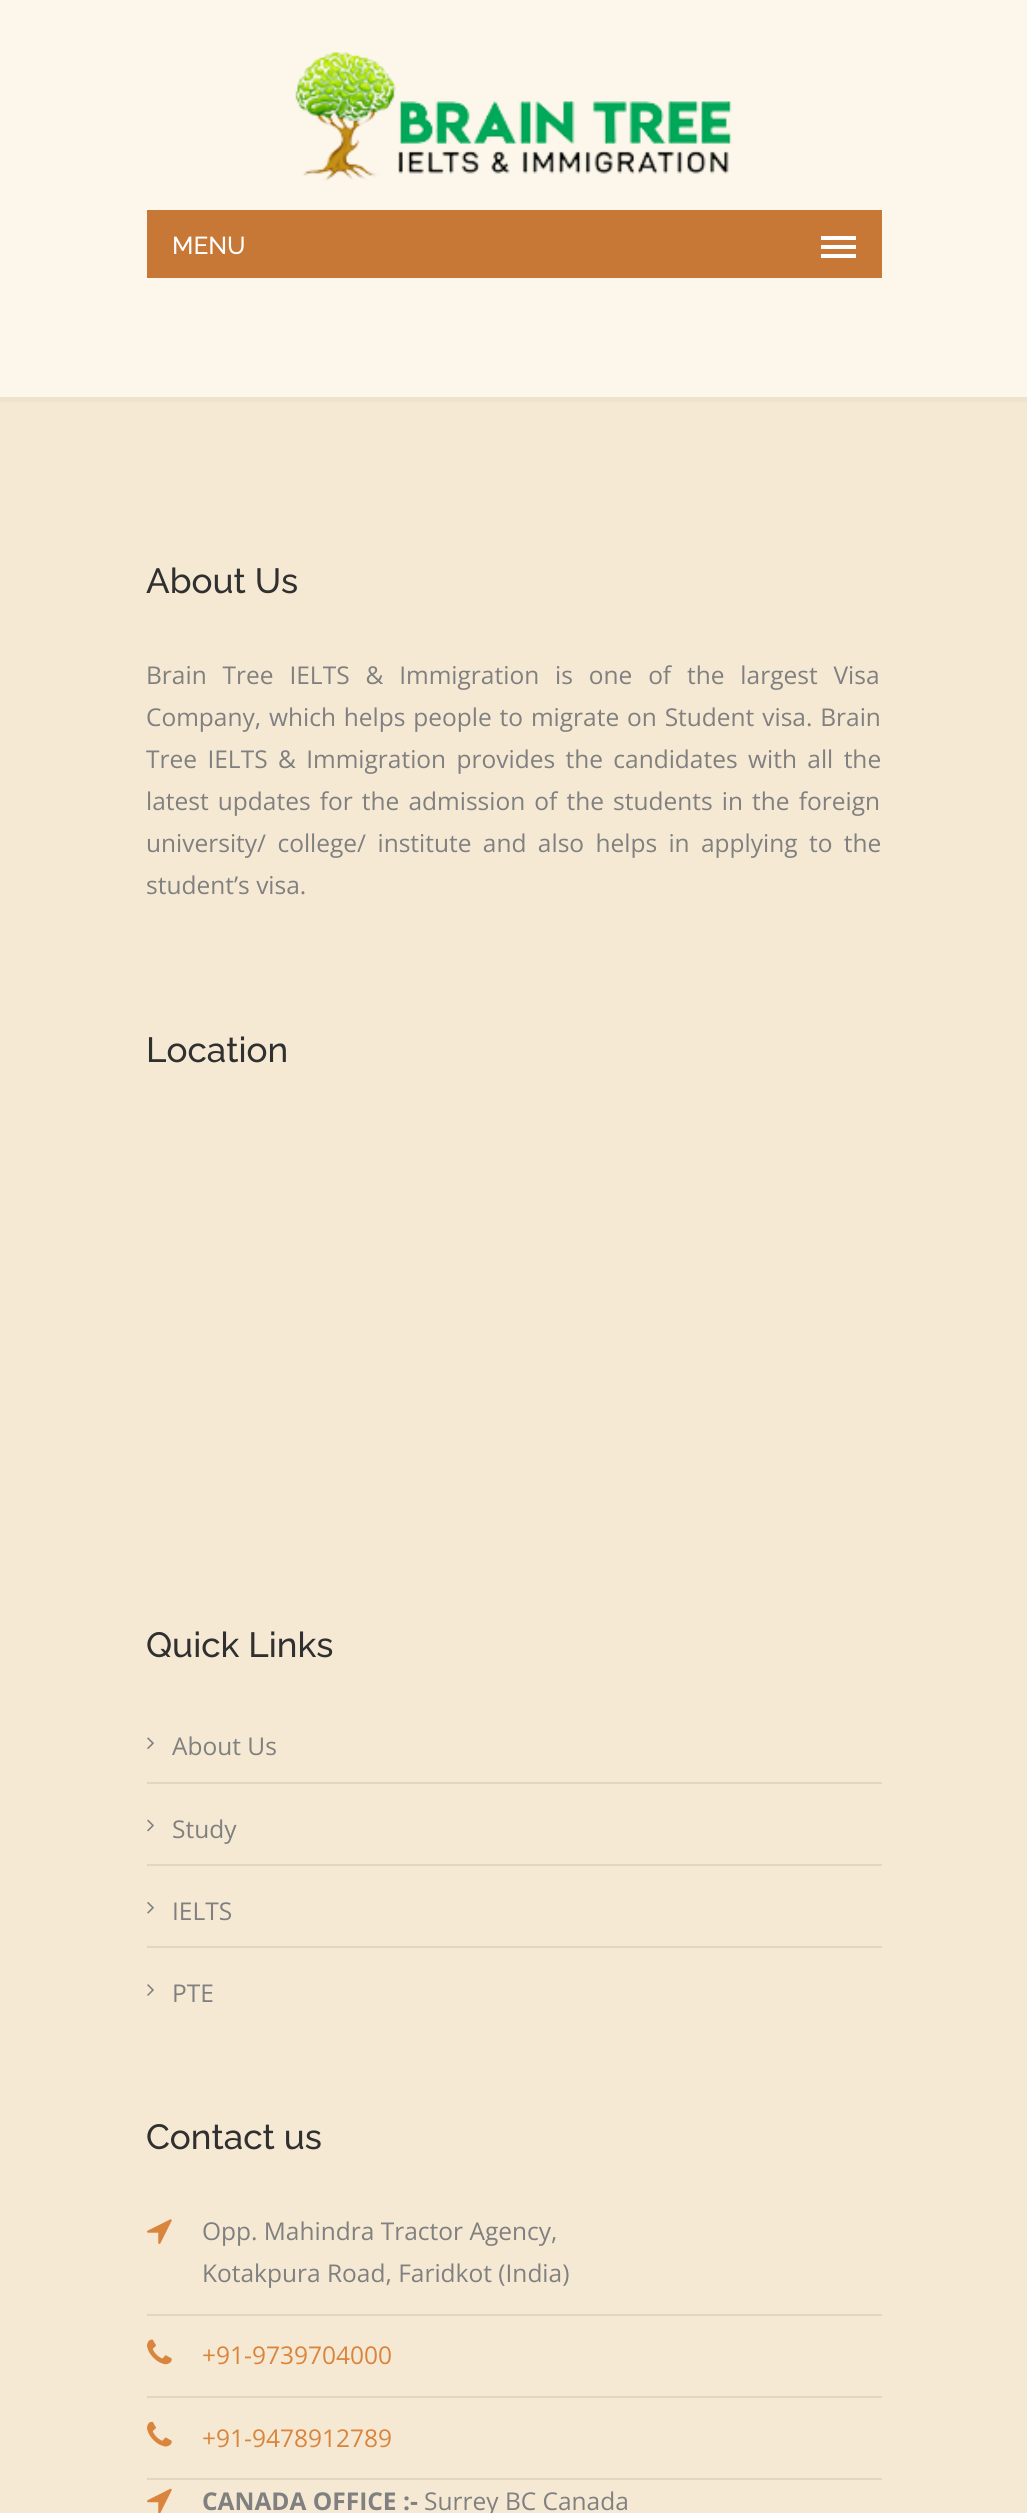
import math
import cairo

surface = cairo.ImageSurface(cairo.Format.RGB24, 1027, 2513)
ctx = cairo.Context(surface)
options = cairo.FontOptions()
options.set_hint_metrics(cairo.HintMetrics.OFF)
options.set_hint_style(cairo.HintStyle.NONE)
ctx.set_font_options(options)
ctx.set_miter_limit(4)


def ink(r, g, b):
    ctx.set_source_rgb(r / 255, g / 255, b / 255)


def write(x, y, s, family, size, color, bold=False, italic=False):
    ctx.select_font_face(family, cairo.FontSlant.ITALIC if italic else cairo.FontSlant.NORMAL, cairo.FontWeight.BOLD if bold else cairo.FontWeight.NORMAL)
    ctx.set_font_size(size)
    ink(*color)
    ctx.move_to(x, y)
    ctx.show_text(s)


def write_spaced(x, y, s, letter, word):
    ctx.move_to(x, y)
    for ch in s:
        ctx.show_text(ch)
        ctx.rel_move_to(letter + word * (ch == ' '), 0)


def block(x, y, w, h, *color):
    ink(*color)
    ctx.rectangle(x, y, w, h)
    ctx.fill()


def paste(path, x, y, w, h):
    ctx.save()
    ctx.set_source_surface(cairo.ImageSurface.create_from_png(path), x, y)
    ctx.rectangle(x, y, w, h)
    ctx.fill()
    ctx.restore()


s1 = dict(family="Raleway Medium", size=24.5, color=(255, 255, 255))
s2 = dict(family="Raleway Medium", size=35, color=(48, 48, 48))
s3 = dict(family="Open Sans", size=24.5, color=(128, 128, 128))
s4 = dict(family="Open Sans", size=24.5, color=(218, 133, 61))
s5 = dict(family="Open Sans", size=24.5, color=(128, 128, 128), bold=True)

ink(253, 246, 234)
ctx.paint()
paste("pic1.png", 295, 52, 437, 129)
block(147, 210, 735, 68, 199, 120, 54)
write(172, 254, "MENU", **s1)
block(821, 245, 35, 4, 255, 255, 255)
block(821, 236, 35, 4, 255, 255, 255)
block(821, 254, 35, 4, 255, 255, 255)
block(0, 402, 1027, 2111, 245, 233, 212)
block(0, 397, 1027, 5, 240, 227, 203)
write(146, 593, "About Us", **s2)
ctx.select_font_face("Open Sans")
ctx.set_font_size(24.5)
ink(128, 128, 128)
write_spaced(146, 684, "Brain Tree IELTS & Immigration is one of the largest Visa", 0, 9.5)
write_spaced(146, 726, "Company, which helps people to migrate on Student visa. Brain", 0, 1.5)
write_spaced(146, 768, "Tree IELTS & Immigration provides the candidates with all the", 0, 4)
write_spaced(146, 810, "latest updates for the admission of the students in the foreign", 0, 2.75)
write_spaced(146, 852, "university/ college/ institute and also helps in applying to the", 0, 5)
write(146, 894, "student’s visa.", **s3)
write(146, 1062, "Location", **s2)
write(146, 1657, "Quick Links", **s2)
block(147, 1782, 735, 2, 228, 213, 188)
paste("pic2.png", 147, 1737, 7, 12)
write(172, 1755, "About Us", **s3)
block(147, 1864, 735, 2, 228, 213, 188)
paste("pic3.png", 147, 1819, 7, 13)
write(172, 1838, "Study", **s3)
block(147, 1946, 735, 2, 228, 213, 188)
paste("pic4.png", 147, 1902, 7, 12)
write(172, 1920, "IELTS", **s3)
paste("pic5.png", 147, 1984, 7, 12)
write(172, 2002, "PTE", **s3)
write(146, 2149, "Contact us", **s2)
block(147, 2314, 735, 2, 226, 214, 193)
paste("pic6.png", 147, 2219, 25, 25)
write(202, 2240, "Opp. Mahindra Tractor Agency,", **s3)
write(202, 2282, "Kotakpura Road, Faridkot (India)", **s3)
block(147, 2396, 735, 2, 226, 214, 193)
paste("pic7.png", 147, 2339, 25, 26)
write(202, 2364, "+91-9739704000", **s4)
block(147, 2478, 735, 2, 226, 214, 193)
paste("pic8.png", 147, 2421, 25, 26)
write(202, 2447, "+91-9478912789", **s4)
paste("pic9.png", 147, 2488, 25, 25)
write(202, 2510, "CANADA OFFICE :-", **s5)
write(424, 2510, "Surrey BC Canada", **s3)
surface.write_to_png("screenshot.png")
